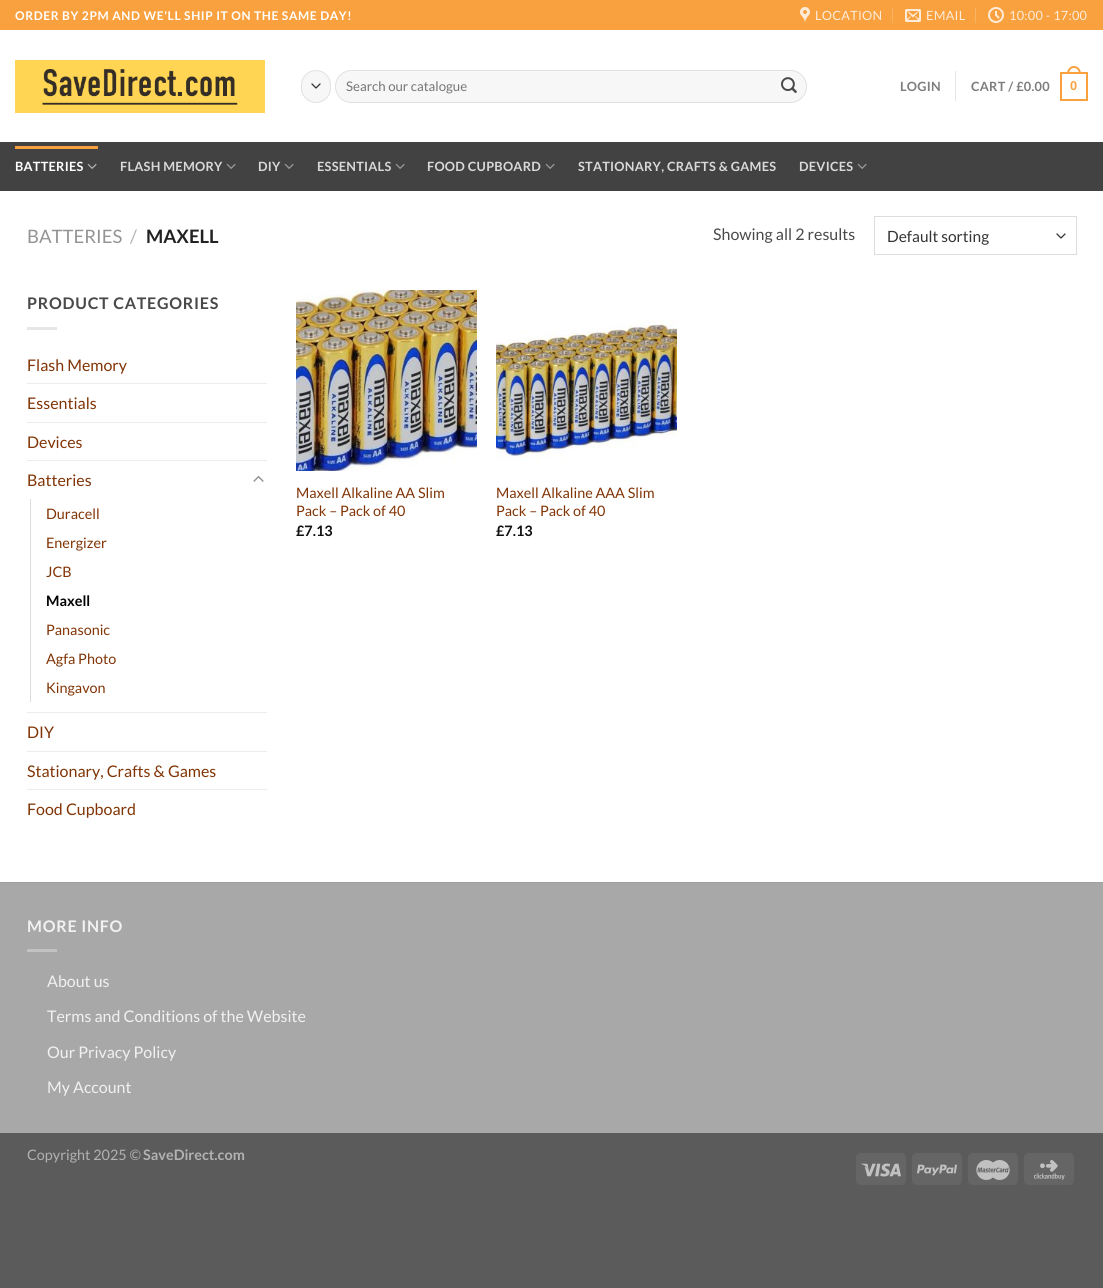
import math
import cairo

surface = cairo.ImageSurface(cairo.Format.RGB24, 1103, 1288)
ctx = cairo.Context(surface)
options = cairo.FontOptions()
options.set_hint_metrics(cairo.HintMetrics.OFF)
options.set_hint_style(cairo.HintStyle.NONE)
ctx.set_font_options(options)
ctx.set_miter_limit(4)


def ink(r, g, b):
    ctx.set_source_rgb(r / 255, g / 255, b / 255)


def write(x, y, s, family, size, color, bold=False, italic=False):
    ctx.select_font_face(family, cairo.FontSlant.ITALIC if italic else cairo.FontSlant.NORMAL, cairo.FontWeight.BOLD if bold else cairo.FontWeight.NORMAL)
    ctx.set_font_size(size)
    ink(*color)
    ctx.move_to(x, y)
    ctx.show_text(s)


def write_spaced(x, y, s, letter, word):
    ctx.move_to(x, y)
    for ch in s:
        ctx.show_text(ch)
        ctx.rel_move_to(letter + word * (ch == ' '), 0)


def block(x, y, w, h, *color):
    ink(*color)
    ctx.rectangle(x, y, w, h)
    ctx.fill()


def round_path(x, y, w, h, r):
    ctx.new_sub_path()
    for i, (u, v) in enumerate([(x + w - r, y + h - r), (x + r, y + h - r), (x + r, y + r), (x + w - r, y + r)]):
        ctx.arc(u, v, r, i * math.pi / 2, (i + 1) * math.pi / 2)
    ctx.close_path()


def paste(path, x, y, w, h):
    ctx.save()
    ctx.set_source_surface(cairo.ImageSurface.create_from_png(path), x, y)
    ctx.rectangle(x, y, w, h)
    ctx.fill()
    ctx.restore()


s1 = dict(family="Lato", size=13.25, color=(117, 117, 117))
s2 = dict(family="Lato", size=18.5, color=(148, 148, 148))
s3 = dict(family="Lato", size=18.5, color=(178, 178, 178))
s4 = dict(family="Lato", size=18.5, color=(34, 34, 34), bold=True)
s5 = dict(family="Lato", size=16, color=(73, 73, 73))
s6 = dict(family="Lato", size=15.5, color=(51, 51, 51))
s7 = dict(family="Lato", size=16, color=(129, 52, 5))
s8 = dict(family="Lato", size=14.4, color=(129, 52, 5))
s9 = dict(family="Lato", size=14.4, color=(0, 0, 0), bold=True)
s10 = dict(family="Lato", size=14.4, color=(17, 17, 17), bold=True)
s11 = dict(family="Lato", size=16, color=(241, 241, 241))
s12 = dict(family="Lato", size=14.4, color=(178, 178, 178))
s13 = dict(family="Lato", size=14.4, color=(178, 178, 178), bold=True)

ink(91, 91, 91)
ctx.paint()
block(0, 30, 1103, 852, 255, 255, 255)
block(0, 0, 1103, 30, 249, 160, 63)
ctx.select_font_face("Lato", cairo.FontSlant.NORMAL, cairo.FontWeight.BOLD)
ctx.set_font_size(12)
ink(255, 255, 255)
write_spaced(15, 20, "ORDER BY 2PM AND WE'LL SHIP IT ON THE SAME DAY!", 0.6, 0)
paste("pic1.png", 800, 7, 10, 16)
ctx.select_font_face("Lato")
ctx.set_font_size(12.75)
ink(254, 236, 217)
write_spaced(815, 20, "LOCATION", 0.25, 0)
block(892, 8, 1, 15, 250, 179, 101)
paste("pic2.png", 905, 9, 16, 13)
ink(254, 236, 217)
write_spaced(926, 20, "EMAIL", 0.25, 0)
block(975, 8, 1, 15, 250, 179, 101)
paste("pic3.png", 988, 7, 16, 16)
ink(254, 236, 217)
write_spaced(1009, 20, "10:00 - 17:00", 0.25, 0)
paste("pic4.png", 15, 60, 250, 53)
ink(247, 247, 247)
round_path(301, 70, 30, 33, 15)
ctx.fill()
ctx.new_path()
ctx.move_to(312, 84)
ctx.line_to(316, 88)
ctx.line_to(320, 84)
ink(51, 51, 51)
ctx.set_line_width(1.3)
ctx.set_line_cap(cairo.LineCap.ROUND)
ctx.set_line_join(cairo.LineJoin.ROUND)
ctx.stroke()
round_path(301.5, 70.5, 29, 32, 14.5)
ctx.set_source_rgba(0, 0, 0, 0.09)
ctx.set_line_width(1)
ctx.set_line_cap(cairo.LineCap.BUTT)
ctx.set_line_join(cairo.LineJoin.MITER)
ctx.stroke()
ink(247, 247, 247)
round_path(335, 70, 472, 33, 16.5)
ctx.fill()
round_path(335.5, 70.5, 471, 32, 16)
ctx.set_source_rgba(0, 0, 0, 0.09)
ctx.stroke()
write(346, 91, "Search our catalogue", **s1)
paste("pic5.png", 781, 77, 16, 16)
ctx.select_font_face("Lato", cairo.FontSlant.NORMAL, cairo.FontWeight.BOLD)
ctx.set_font_size(12.75)
ink(125, 125, 125)
write_spaced(900, 91, "LOGIN", 0.25, 0)
block(955, 71, 1, 30, 230, 230, 230)
ink(125, 125, 125)
write_spaced(971, 91, "CART / £0.00", 0.25, 0)
ctx.rectangle(1061, 73, 26, 27)
ink(249, 160, 63)
ctx.set_line_width(2)
ctx.stroke()
ctx.set_fill_rule(cairo.FillRule.EVEN_ODD)
ctx.new_path()
ctx.move_to(1074, 66)
ctx.curve_to(1078.5, 66, 1081, 70, 1081, 74)
ctx.line_to(1067, 74)
ctx.curve_to(1067, 70, 1069.5, 66, 1074, 66)
ctx.close_path()
ctx.move_to(1074, 68)
ctx.curve_to(1077.5, 68, 1079, 71, 1079, 74)
ctx.line_to(1069, 74)
ctx.curve_to(1069, 71, 1070.5, 68, 1074, 68)
ctx.close_path()
ctx.fill()
ctx.select_font_face("Liberation Sans", cairo.FontSlant.NORMAL, cairo.FontWeight.BOLD)
write_spaced(1070, 90, "0", 0.25, 0)
block(0, 142, 1103, 49, 66, 66, 66)
block(15, 146, 83, 3, 249, 160, 63)
ctx.select_font_face("Lato", cairo.FontSlant.NORMAL, cairo.FontWeight.BOLD)
ink(255, 255, 255)
write_spaced(15, 171, "BATTERIES", 0.25, 0)
paste("pic6.png", 87, 163, 10, 6)
ink(217, 217, 217)
write_spaced(120, 171, "FLASH MEMORY", 0.25, 0)
paste("pic7.png", 226, 163, 10, 6)
write_spaced(258, 171, "DIY", 0.25, 0)
paste("pic7.png", 284, 163, 10, 6)
write_spaced(317, 171, "ESSENTIALS", 0.25, 0)
paste("pic7.png", 395, 163, 10, 6)
write_spaced(427, 171, "FOOD CUPBOARD", 0.25, 0)
paste("pic7.png", 545, 163, 10, 6)
write_spaced(578, 171, "STATIONARY, CRAFTS & GAMES", 0.25, 0)
write_spaced(799, 171, "DEVICES", 0.25, 0)
paste("pic7.png", 857, 163, 10, 6)
write(27, 243, "BATTERIES", **s2)
write(130, 243, "/", **s3)
write(146, 243, "MAXELL", **s4)
write(713, 240, "Showing all 2 results", **s5)
ctx.new_path()
ctx.move_to(1057, 234)
ctx.line_to(1061, 238)
ctx.line_to(1065, 234)
ink(51, 51, 51)
ctx.set_line_width(1.3)
ctx.set_line_cap(cairo.LineCap.ROUND)
ctx.set_line_join(cairo.LineJoin.ROUND)
ctx.stroke()
ctx.rectangle(874.5, 216.5, 202, 38)
ink(221, 221, 221)
ctx.set_line_width(1)
ctx.set_line_cap(cairo.LineCap.BUTT)
ctx.set_line_join(cairo.LineJoin.MITER)
ctx.stroke()
write(887, 242, "Default sorting", **s6)
ctx.select_font_face("Lato", cairo.FontSlant.NORMAL, cairo.FontWeight.BOLD)
ctx.set_font_size(16)
ink(73, 73, 73)
write_spaced(27, 309, "PRODUCT CATEGORIES", 0.75, 0)
block(27, 327, 30, 3, 230, 230, 230)
write(27, 371, "Flash Memory", **s7)
block(27, 383, 240, 1, 236, 236, 236)
write(27, 409, "Essentials", **s7)
block(27, 422, 240, 1, 236, 236, 236)
write(27, 448, "Devices", **s7)
block(27, 460, 240, 1, 236, 236, 236)
write(27, 486, "Batteries", **s7)
paste("pic8.png", 253, 475, 11, 7)
block(30, 499, 1, 203, 221, 221, 221)
write(46, 519, "Duracell", **s8)
write(46, 548, "Energizer", **s8)
write(46, 577, "JCB", **s8)
write(46, 606, "Maxell", **s9)
write(46, 635, "Panasonic", **s8)
write(46, 664, "Agfa Photo", **s8)
write(46, 693, "Kingavon", **s8)
block(27, 712, 240, 1, 236, 236, 236)
write(27, 738, "DIY", **s7)
block(27, 751, 240, 1, 236, 236, 236)
write(27, 777, "Stationary, Crafts & Games", **s7)
block(27, 789, 240, 1, 236, 236, 236)
write(27, 815, "Food Cupboard", **s7)
paste("pic9.png", 296, 290, 181, 181)
write(296, 498, "Maxell Alkaline AA Slim", **s8)
write(296, 516, "Pack – Pack of 40", **s8)
write(296, 536, "£7.13", **s10)
paste("pic10.png", 496, 319, 181, 141)
write(496, 498, "Maxell Alkaline AAA Slim", **s8)
write(496, 516, "Pack – Pack of 40", **s8)
write(496, 536, "£7.13", **s10)
block(0, 883, 1103, 250, 168, 168, 168)
block(0, 882, 1103, 1, 160, 160, 160)
ctx.set_font_size(16)
ink(241, 241, 241)
write_spaced(27, 932, "MORE INFO", 0.75, 0)
block(27, 949, 30, 3, 194, 194, 194)
write(47, 987, "About us", **s11)
write(47, 1022, "Terms and Conditions of the Website", **s11)
write(47, 1058, "Our Privacy Policy", **s11)
write(47, 1093, "My Account", **s11)
write(27, 1160, "Copyright 2025 ©", **s12)
write(143, 1160, "SaveDirect.com", **s13)
ink(101, 101, 101)
round_path(856, 1153, 50, 32, 5)
ctx.fill()
paste("pic11.png", 861, 1163, 40, 14)
round_path(912, 1153, 50, 32, 5)
ctx.fill()
paste("pic12.png", 917, 1164, 40, 12)
round_path(968, 1153, 50, 32, 5)
ctx.fill()
paste("pic13.png", 976, 1160, 34, 20)
round_path(1024, 1153, 50, 32, 5)
ctx.fill()
paste("pic14.png", 1034, 1160, 31, 20)
surface.write_to_png("screenshot.png")
